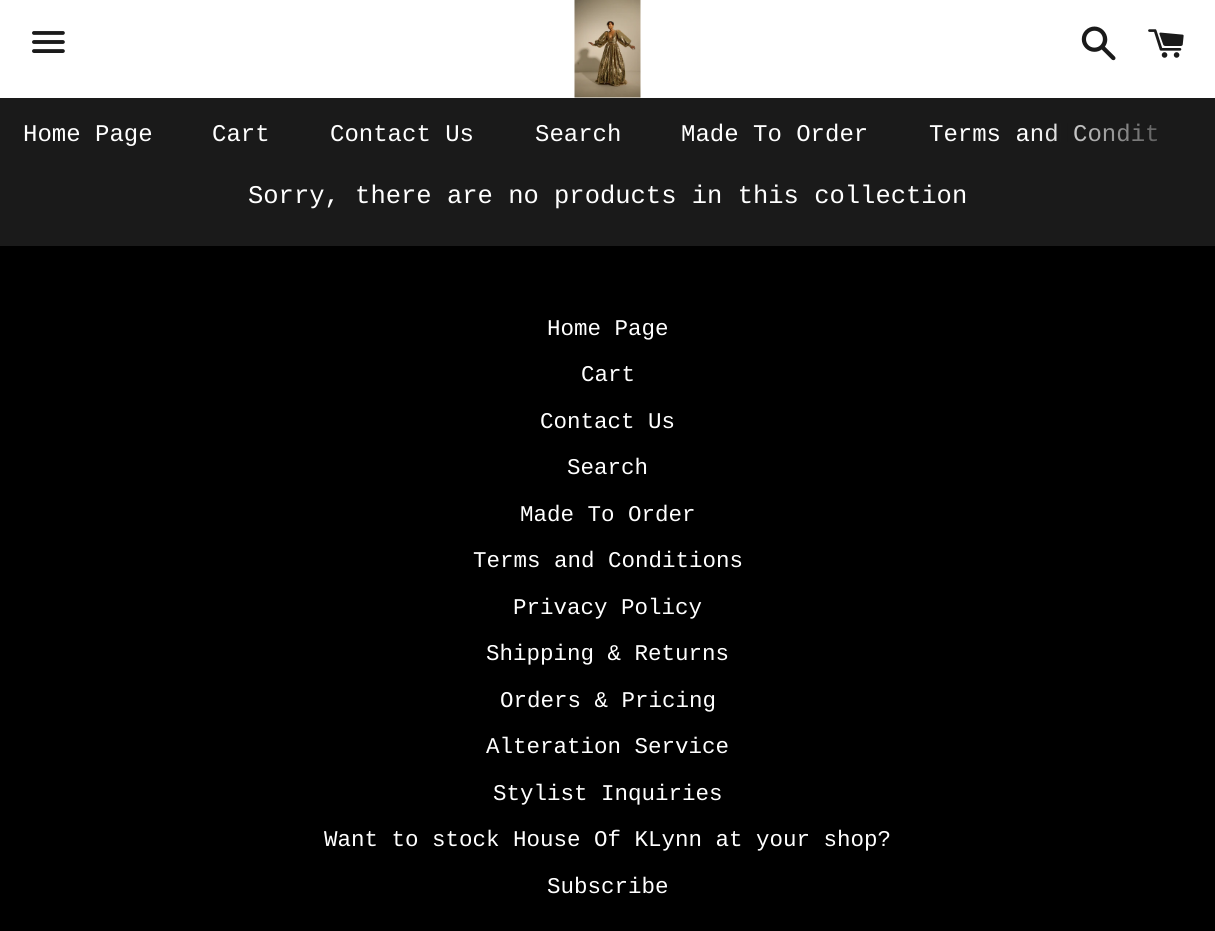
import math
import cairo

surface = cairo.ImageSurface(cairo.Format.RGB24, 1215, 931)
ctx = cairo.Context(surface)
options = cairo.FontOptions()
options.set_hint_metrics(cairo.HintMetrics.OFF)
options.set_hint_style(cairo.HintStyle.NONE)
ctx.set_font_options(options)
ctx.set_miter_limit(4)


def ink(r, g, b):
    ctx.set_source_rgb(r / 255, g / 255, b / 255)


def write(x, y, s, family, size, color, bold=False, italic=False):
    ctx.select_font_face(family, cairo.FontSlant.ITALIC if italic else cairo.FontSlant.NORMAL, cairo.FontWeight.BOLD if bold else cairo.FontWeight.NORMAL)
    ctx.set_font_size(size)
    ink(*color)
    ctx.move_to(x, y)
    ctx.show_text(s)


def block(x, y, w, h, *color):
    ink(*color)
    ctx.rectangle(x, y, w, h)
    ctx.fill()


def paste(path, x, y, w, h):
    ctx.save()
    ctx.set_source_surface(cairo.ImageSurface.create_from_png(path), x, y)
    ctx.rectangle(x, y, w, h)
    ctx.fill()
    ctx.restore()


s1 = dict(family="Liberation Mono", size=24, color=(255, 255, 255))
s2 = dict(family="Liberation Mono", size=25.5, color=(255, 255, 255))
s3 = dict(family="Liberation Mono", size=22.5, color=(255, 255, 255))

ink(26, 26, 26)
ctx.paint()
block(0, 0, 1215, 98, 255, 255, 255)
paste("pic1.png", 32, 31, 33, 22)
paste("pic2.png", 574, 0, 67, 98)
paste("pic3.png", 1081, 26, 35, 35)
paste("pic4.png", 1148, 29, 36, 29)
write(23, 141, "Home Page", **s1)
write(212, 141, "Cart", **s1)
write(330, 141, "Contact Us", **s1)
write(535, 141, "Search", **s1)
write(681, 141, "Made To Order", **s1)
write(929, 141, "Terms and Condit", **s1)
gradient = cairo.LinearGradient(1028, 137, 1215, 137)
gradient.add_color_stop_rgba(0, 0.102, 0.102, 0.102, 0)
gradient.add_color_stop_rgba(1, 0.102, 0.102, 0.102, 1)
ctx.set_source(gradient)
ctx.rectangle(1032, 123, 125, 19)
ctx.fill()
write(248, 203, "Sorry, there are no products in this collection", **s2)
block(0, 246, 1215, 685, 0, 0, 0)
write(547, 335, "Home Page", **s3)
write(581, 381, "Cart", **s3)
write(540, 428, "Contact Us", **s3)
write(567, 474, "Search", **s3)
write(520, 521, "Made To Order", **s3)
write(473, 567, "Terms and Conditions", **s3)
write(513, 614, "Privacy Policy", **s3)
write(486, 660, "Shipping & Returns", **s3)
write(500, 707, "Orders & Pricing", **s3)
write(486, 753, "Alteration Service", **s3)
write(493, 800, "Stylist Inquiries", **s3)
write(324, 846, "Want to stock House Of KLynn at your shop?", **s3)
write(547, 893, "Subscribe", **s3)
surface.write_to_png("screenshot.png")
